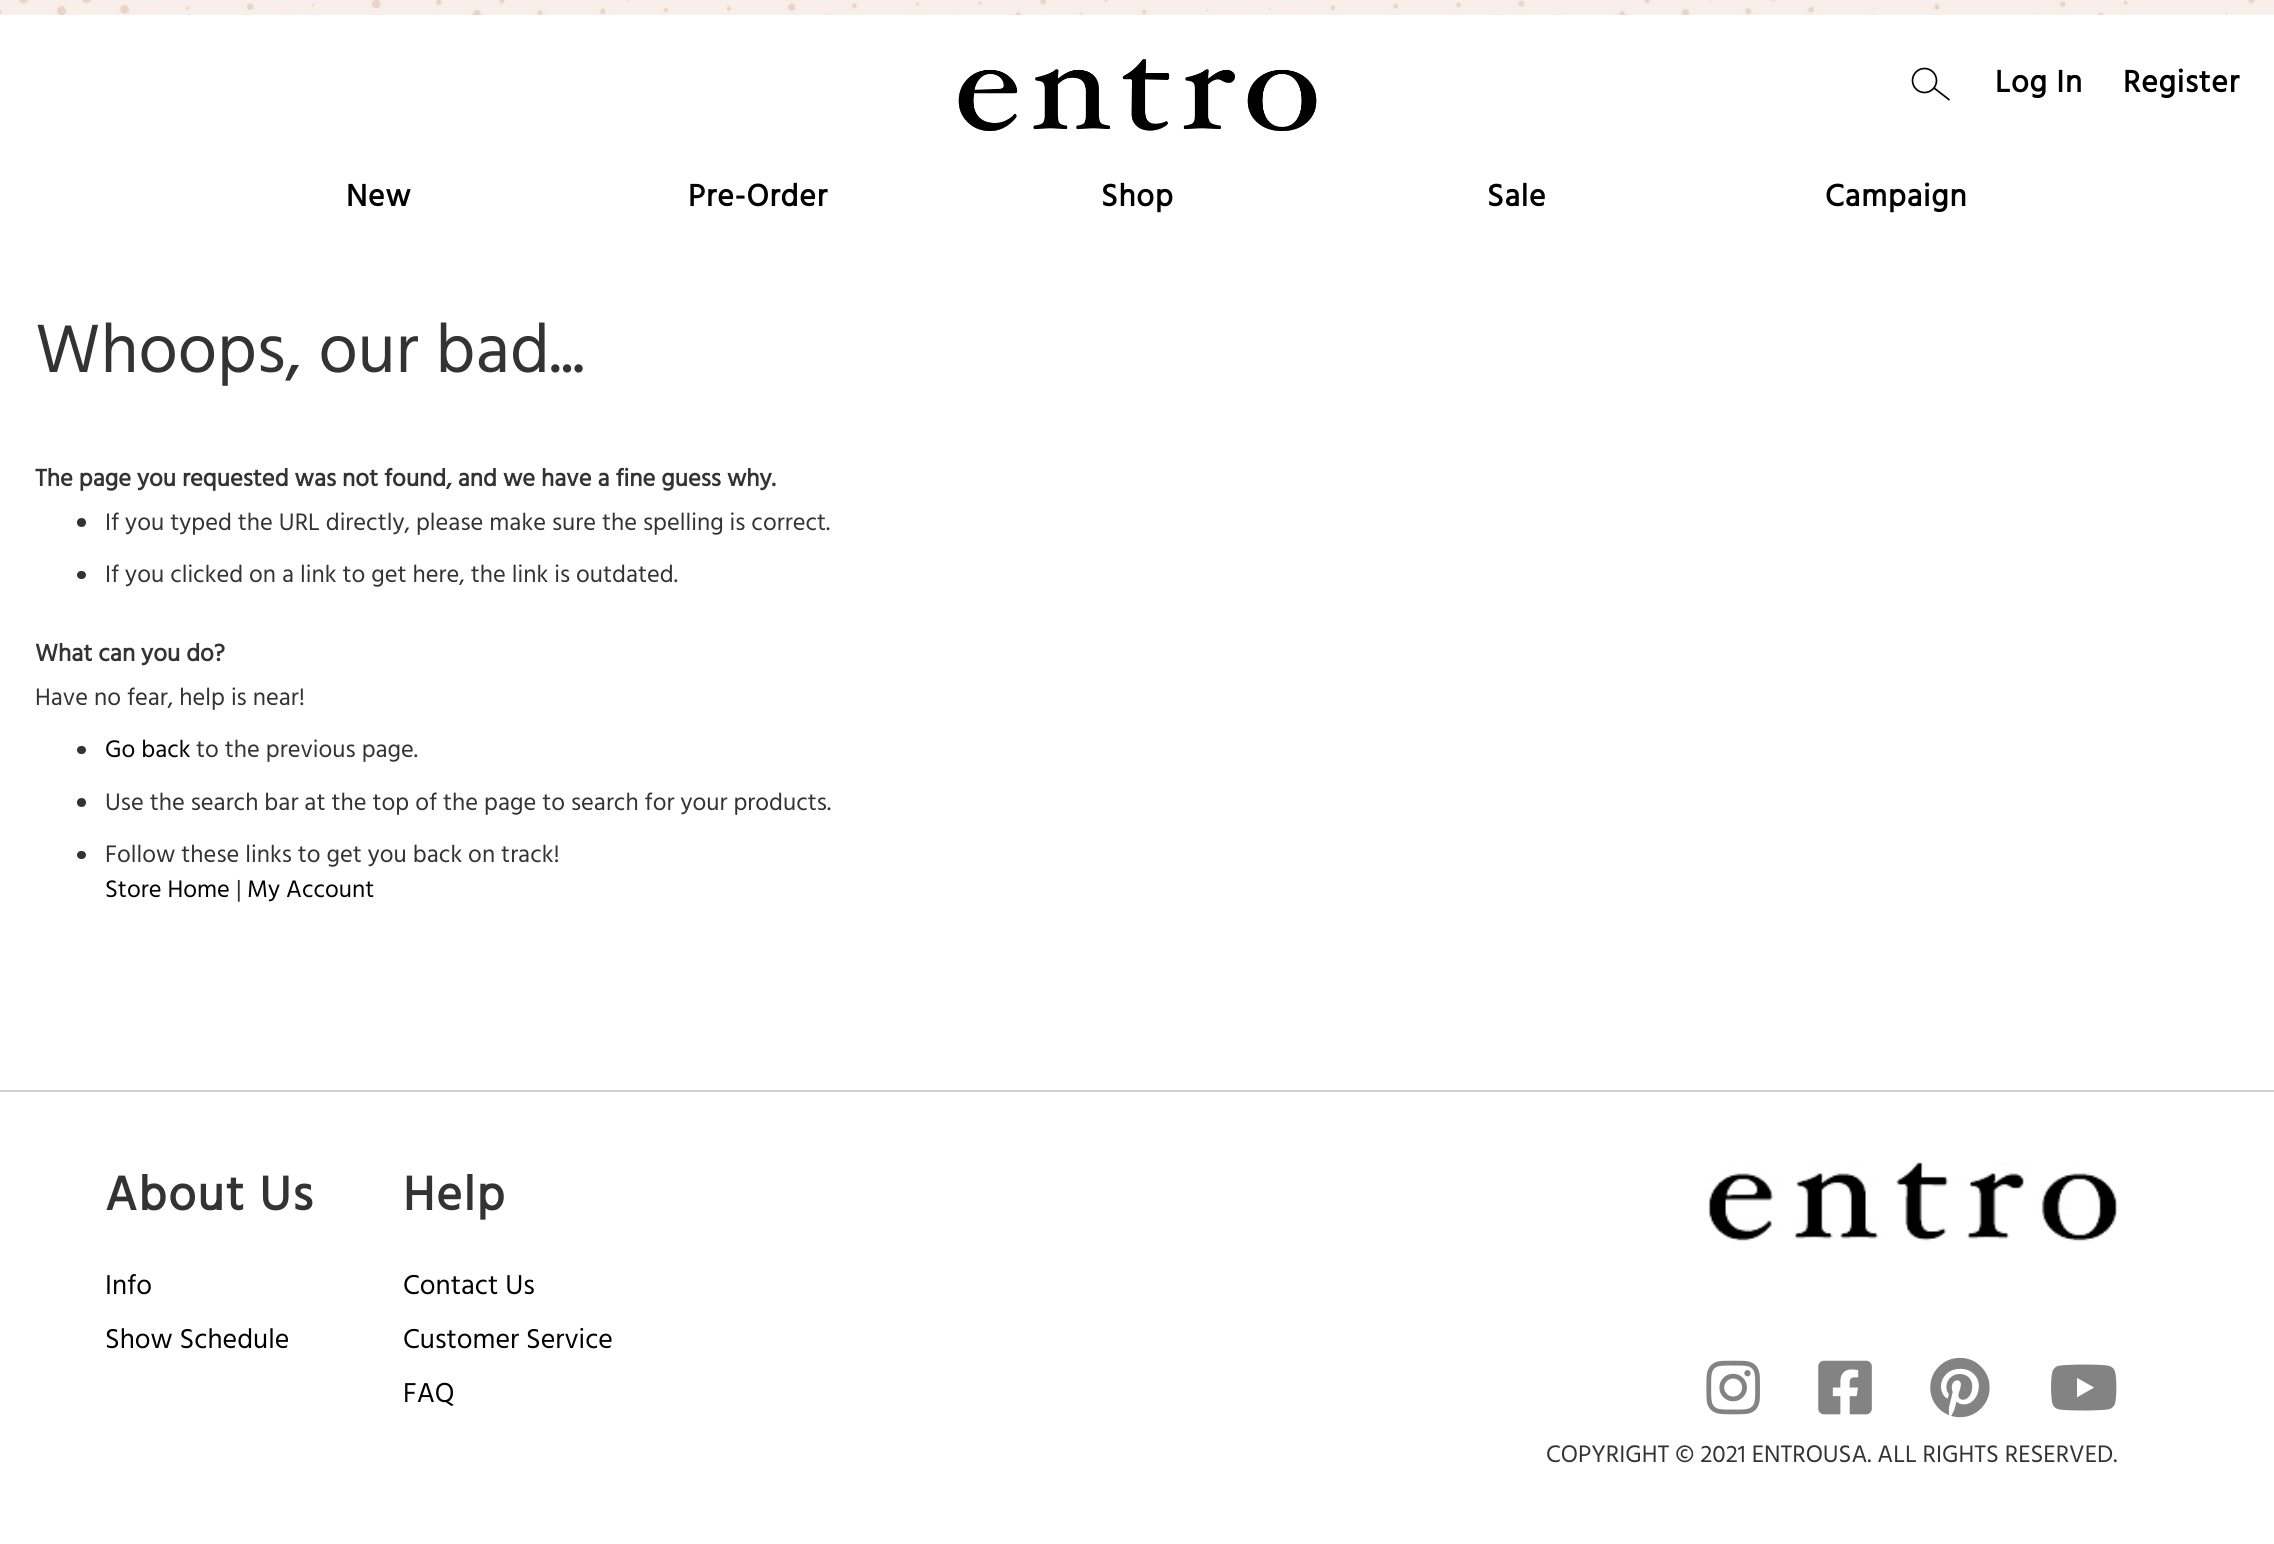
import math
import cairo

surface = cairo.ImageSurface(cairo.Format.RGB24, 2274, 1544)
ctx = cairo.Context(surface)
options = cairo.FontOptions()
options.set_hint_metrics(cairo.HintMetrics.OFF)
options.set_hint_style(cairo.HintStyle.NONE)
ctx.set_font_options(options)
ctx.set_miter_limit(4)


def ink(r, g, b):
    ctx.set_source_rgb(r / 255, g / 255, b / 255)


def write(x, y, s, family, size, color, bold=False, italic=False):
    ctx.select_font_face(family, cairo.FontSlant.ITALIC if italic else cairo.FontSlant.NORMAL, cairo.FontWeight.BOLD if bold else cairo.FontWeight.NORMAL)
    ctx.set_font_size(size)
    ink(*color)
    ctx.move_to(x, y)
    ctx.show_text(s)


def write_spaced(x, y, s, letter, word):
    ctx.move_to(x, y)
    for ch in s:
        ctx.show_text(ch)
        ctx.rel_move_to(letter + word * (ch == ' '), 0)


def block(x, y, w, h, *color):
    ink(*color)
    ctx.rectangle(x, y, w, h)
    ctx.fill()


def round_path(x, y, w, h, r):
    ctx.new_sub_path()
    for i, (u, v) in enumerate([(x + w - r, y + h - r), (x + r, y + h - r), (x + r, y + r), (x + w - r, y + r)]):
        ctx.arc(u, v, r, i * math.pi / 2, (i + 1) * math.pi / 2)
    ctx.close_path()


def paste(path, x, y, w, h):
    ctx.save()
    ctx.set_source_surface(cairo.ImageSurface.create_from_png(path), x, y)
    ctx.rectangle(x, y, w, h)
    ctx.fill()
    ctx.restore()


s1 = dict(family="Hind Madurai", size=70, color=(51, 51, 51))
s2 = dict(family="Hind Madurai", size=24.5, color=(51, 51, 51), bold=True)
s3 = dict(family="Hind Madurai", size=24.5, color=(51, 51, 51))
s4 = dict(family="Hind Madurai", size=24.5, color=(0, 0, 0))
s5 = dict(family="Hind Madurai", size=28, color=(0, 0, 0))

ink(255, 255, 255)
ctx.paint()
paste("pic1.png", 0, 0, 2274, 15)
ctx.select_font_face("Hind Madurai", cairo.FontSlant.NORMAL, cairo.FontWeight.BOLD)
ctx.set_font_size(31.5)
ink(0, 0, 0)
write_spaced(1995, 92, "Log In", 0.9, 0)
write_spaced(2123, 92, "Register", 0.9, 0)
paste("pic2.png", 958, 59, 359, 72)
ctx.arc(1924.5, 80.5, 12, 0, 2 * math.pi)
ctx.set_line_width(1.7)
ctx.stroke()
ctx.new_path()
ctx.move_to(1934, 88)
ctx.line_to(1949.5, 100)
ctx.stroke()
write_spaced(346, 206, "New", 0.9, 0)
write_spaced(688, 206, "Pre-Order", 0.9, 0)
write_spaced(1101, 206, "Shop", 0.9, 0)
write_spaced(1487, 206, "Sale", 0.9, 0)
write_spaced(1825, 206, "Campaign", 0.9, 0)
write(35, 372, "Whoops, our bad...", **s1)
write(35, 486, "The page you requested was not found, and we have a fine guess why.", **s2)
ctx.new_path()
ctx.arc(81.5, 522.5, 4.5, 0, 2 * math.pi)
ctx.fill()
write(105, 530, "If you typed the URL directly, please make sure the spelling is correct.", **s3)
round_path(77, 571, 9, 8, 4)
ctx.fill()
write(105, 582, "If you clicked on a link to get here, the link is outdated.", **s3)
write(35, 661, "What can you do?", **s2)
write(35, 705, "Have no fear, help is near!", **s3)
round_path(77, 746, 9, 8, 4)
ctx.fill()
write(105, 757, "Go back", **s4)
write(196, 757, "to the previous page.", **s3)
ctx.new_path()
ctx.arc(81.5, 802.5, 4.5, 0, 2 * math.pi)
ctx.fill()
write(105, 810, "Use the search bar at the top of the page to search for your products.", **s3)
round_path(77, 851, 9, 8, 4)
ctx.fill()
write(105, 862, "Follow these links to get you back on track!", **s3)
write(105, 897, "Store Home", **s4)
write(236, 897, "|", **s3)
write(247, 897, "My Account", **s4)
block(0, 1090, 2274, 2, 209, 209, 209)
ctx.select_font_face("Hind Madurai", cairo.FontSlant.NORMAL, cairo.FontWeight.BOLD)
ctx.set_font_size(49)
ink(51, 51, 51)
write_spaced(105, 1210, "About Us", 1.75, 0)
write(105, 1294, "Info", **s5)
write(105, 1348, "Show Schedule", **s5)
ctx.select_font_face("Hind Madurai", cairo.FontSlant.NORMAL, cairo.FontWeight.BOLD)
ctx.set_font_size(49)
ink(51, 51, 51)
write_spaced(403, 1210, "Help", 1.75, 0)
write(403, 1294, "Contact Us", **s5)
write(403, 1348, "Customer Service", **s5)
write(403, 1402, "FAQ", **s5)
paste("pic3.png", 1708, 1161, 410, 80)
paste("pic4.png", 1706, 1360, 54, 55)
paste("pic5.png", 1818, 1360, 54, 55)
paste("pic6.png", 1930, 1357, 60, 61)
paste("pic7.png", 2051, 1364, 66, 47)
write(1546, 1462, "COPYRIGHT © 2021 ENTROUSA. ALL RIGHTS RESERVED.", **s3)
surface.write_to_png("screenshot.png")
